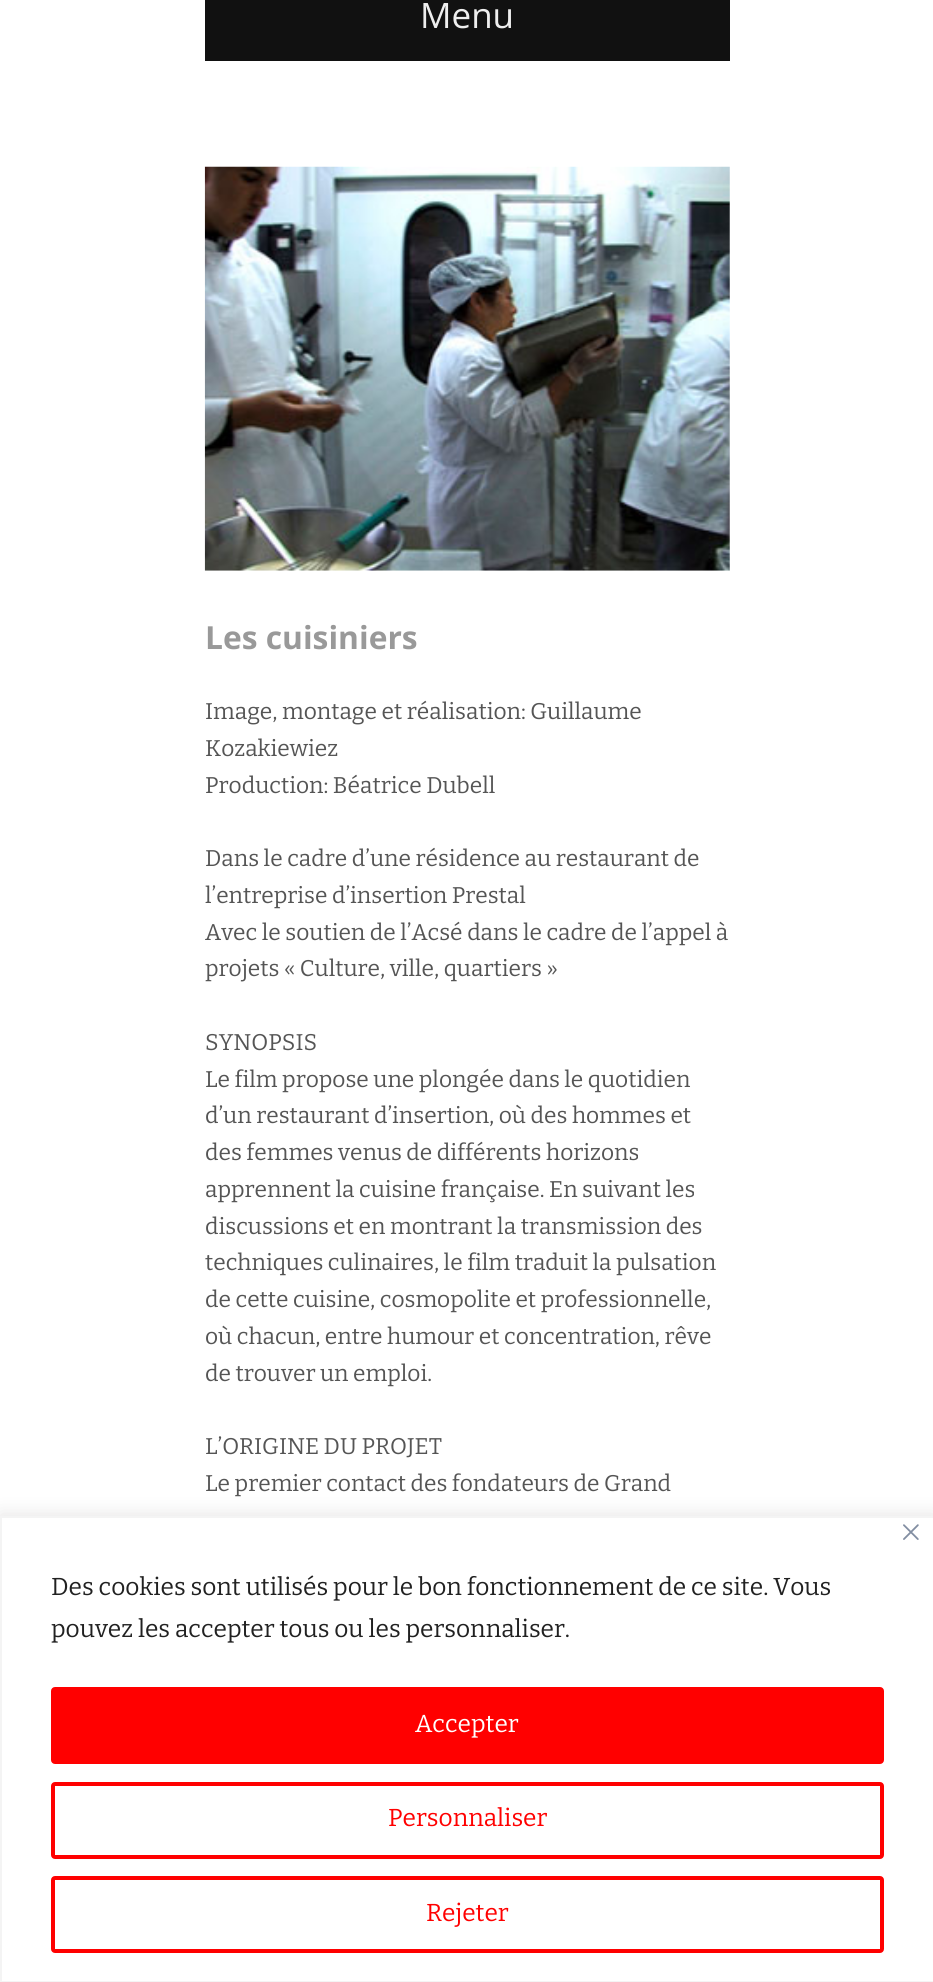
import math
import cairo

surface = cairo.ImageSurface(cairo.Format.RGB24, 933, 1982)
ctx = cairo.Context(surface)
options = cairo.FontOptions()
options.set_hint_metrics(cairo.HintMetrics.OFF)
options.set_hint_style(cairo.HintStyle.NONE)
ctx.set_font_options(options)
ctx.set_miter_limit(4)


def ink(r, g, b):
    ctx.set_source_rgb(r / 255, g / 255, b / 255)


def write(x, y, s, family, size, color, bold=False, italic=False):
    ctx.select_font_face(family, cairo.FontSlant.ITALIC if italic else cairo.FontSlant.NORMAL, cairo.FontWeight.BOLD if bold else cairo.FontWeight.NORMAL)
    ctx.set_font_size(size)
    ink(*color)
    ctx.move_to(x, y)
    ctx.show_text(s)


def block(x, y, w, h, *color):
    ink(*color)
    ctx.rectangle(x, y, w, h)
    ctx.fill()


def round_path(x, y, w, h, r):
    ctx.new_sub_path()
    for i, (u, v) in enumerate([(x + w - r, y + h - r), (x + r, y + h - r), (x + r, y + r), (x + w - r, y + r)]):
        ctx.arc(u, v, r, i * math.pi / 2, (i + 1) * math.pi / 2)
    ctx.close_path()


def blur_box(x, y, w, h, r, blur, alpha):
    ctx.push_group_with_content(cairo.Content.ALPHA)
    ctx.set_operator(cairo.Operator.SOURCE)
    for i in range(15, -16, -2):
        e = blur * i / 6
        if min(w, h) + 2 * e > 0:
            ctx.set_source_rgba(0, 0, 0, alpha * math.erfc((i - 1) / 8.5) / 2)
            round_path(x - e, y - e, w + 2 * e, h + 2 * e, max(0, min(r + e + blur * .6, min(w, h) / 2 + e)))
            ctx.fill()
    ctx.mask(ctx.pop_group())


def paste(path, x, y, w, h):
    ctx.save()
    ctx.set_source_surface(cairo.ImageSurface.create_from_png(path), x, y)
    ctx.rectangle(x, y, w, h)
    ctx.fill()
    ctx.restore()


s1 = dict(family="Open Sans", size=35, color=(238, 238, 238))
s2 = dict(family="Open Sans", size=31.75, color=(153, 153, 153), bold=True)
s3 = dict(family="Bitter Thin", size=22.75, color=(85, 85, 85))
s4 = dict(family="Bitter Thin", size=24.5, color=(33, 33, 33))
s5 = dict(family="Bitter Thin", size=24.5, color=(255, 255, 255))
s6 = dict(family="Bitter Thin", size=24.5, color=(255, 0, 0))

ink(255, 255, 255)
ctx.paint()
block(205, 0, 525, 61, 17, 17, 17)
write(420, 28, "Menu", **s1)
paste("pic1.png", 204, 166, 526, 405)
write(205, 649, "Les cuisiniers", **s2)
write(205, 719, "Image, montage et réalisation: Guillaume", **s3)
write(205, 756, "Kozakiewiez", **s3)
write(205, 793, "Production: Béatrice Dubell", **s3)
write(205, 866, "Dans le cadre d’une résidence au restaurant de", **s3)
write(205, 903, "l’entreprise d’insertion Prestal", **s3)
write(205, 940, "Avec le soutien de l’Acsé dans le cadre de l’appel à", **s3)
write(205, 976, "projets « Culture, ville, quartiers »", **s3)
write(205, 1050, "SYNOPSIS", **s3)
write(205, 1087, "Le film propose une plongée dans le quotidien", **s3)
write(205, 1123, "d’un restaurant d’insertion, où des hommes et", **s3)
write(205, 1160, "des femmes venus de différents horizons", **s3)
write(205, 1197, "apprennent la cuisine française. En suivant les", **s3)
write(205, 1234, "discussions et en montrant la transmission des", **s3)
write(205, 1270, "techniques culinaires, le film traduit la pulsation", **s3)
write(205, 1307, "de cette cuisine, cosmopolite et professionnelle,", **s3)
write(205, 1344, "où chacun, entre humour et concentration, rêve", **s3)
write(205, 1381, "de trouver un emploi.", **s3)
write(205, 1454, "L’ORIGINE DU PROJET", **s3)
write(205, 1491, "Le premier contact des fondateurs de Grand", **s3)
ink(172, 171, 171)
blur_box(0, 1514, 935, 467, 0, 9, 0.3)
ink(255, 255, 255)
ctx.rectangle(1, 1517, 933, 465)
ctx.fill_preserve()
ink(244, 244, 244)
ctx.stroke()
paste("pic2.png", 903, 1524, 16, 16)
write(51, 1595, "Des cookies sont utilisés pour le bon fonctionnement de ce site. Vous", **s4)
write(51, 1637, "pouvez les accepter tous ou les personnaliser.", **s4)
ink(255, 0, 0)
round_path(53, 1689, 829, 73, 2)
ctx.fill_preserve()
ctx.set_line_width(4)
ctx.stroke()
write(415, 1732, "Accepter", **s5)
round_path(53, 1784, 829, 73, 2)
ink(255, 0, 0)
ctx.stroke()
write(388, 1826, "Personnaliser", **s6)
round_path(53, 1878, 829, 73, 2)
ctx.stroke()
write(426, 1921, "Rejeter", **s6)
surface.write_to_png("screenshot.png")
